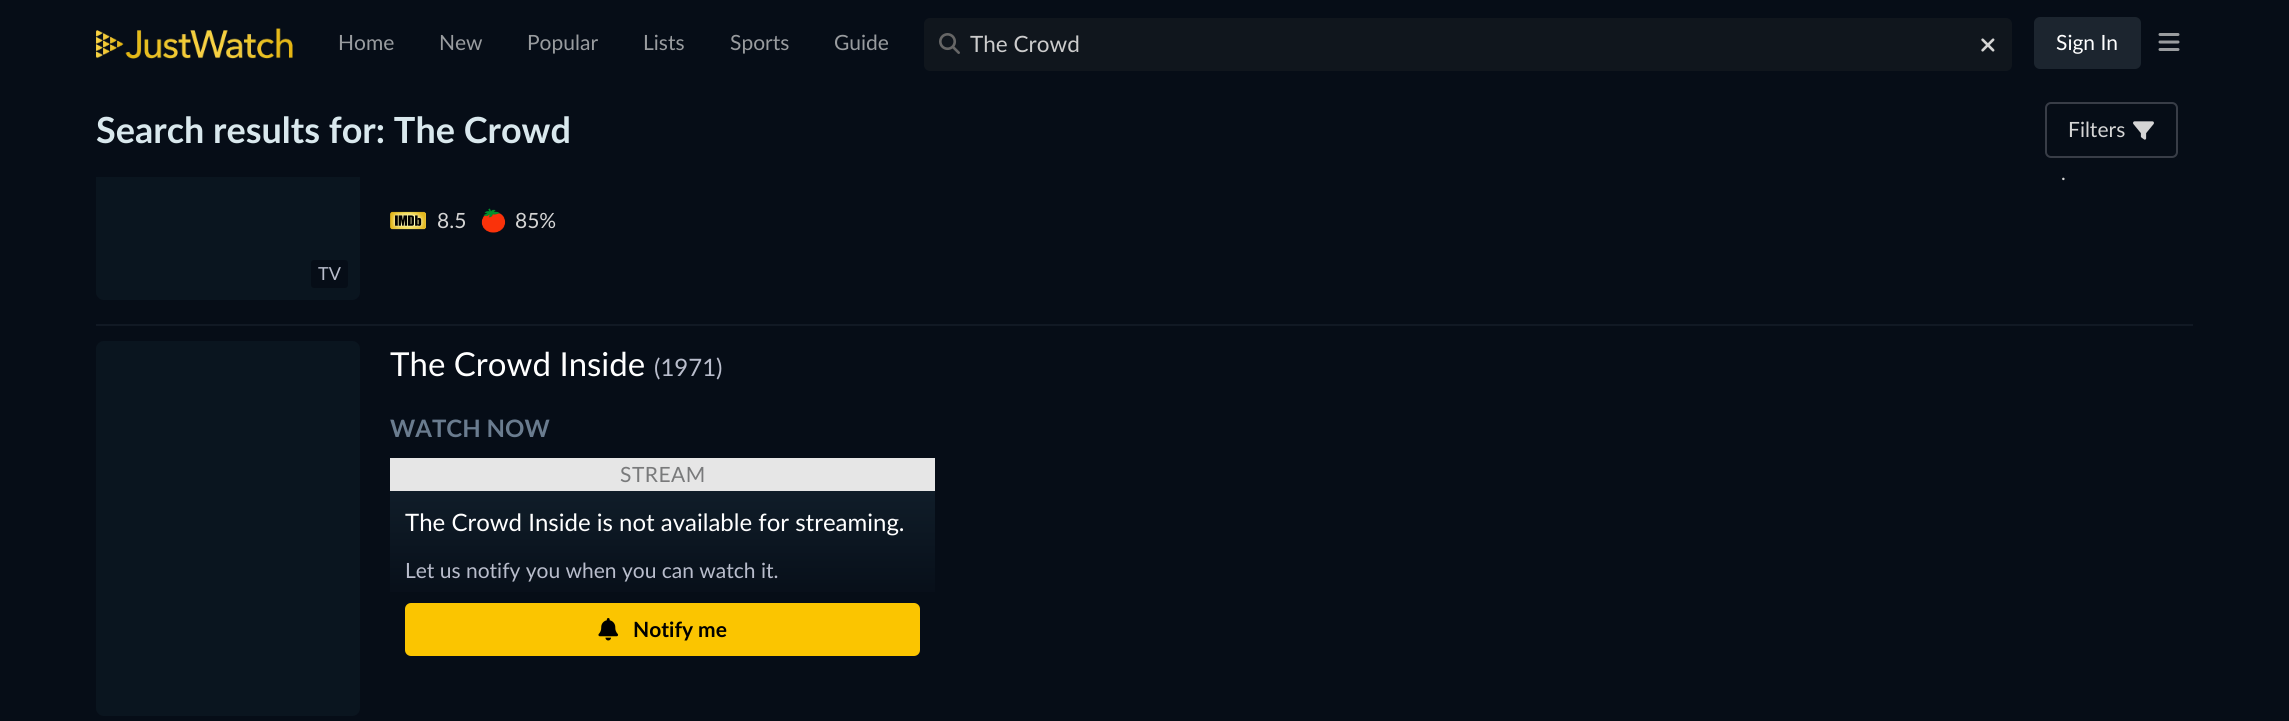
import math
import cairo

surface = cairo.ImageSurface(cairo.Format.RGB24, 2289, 721)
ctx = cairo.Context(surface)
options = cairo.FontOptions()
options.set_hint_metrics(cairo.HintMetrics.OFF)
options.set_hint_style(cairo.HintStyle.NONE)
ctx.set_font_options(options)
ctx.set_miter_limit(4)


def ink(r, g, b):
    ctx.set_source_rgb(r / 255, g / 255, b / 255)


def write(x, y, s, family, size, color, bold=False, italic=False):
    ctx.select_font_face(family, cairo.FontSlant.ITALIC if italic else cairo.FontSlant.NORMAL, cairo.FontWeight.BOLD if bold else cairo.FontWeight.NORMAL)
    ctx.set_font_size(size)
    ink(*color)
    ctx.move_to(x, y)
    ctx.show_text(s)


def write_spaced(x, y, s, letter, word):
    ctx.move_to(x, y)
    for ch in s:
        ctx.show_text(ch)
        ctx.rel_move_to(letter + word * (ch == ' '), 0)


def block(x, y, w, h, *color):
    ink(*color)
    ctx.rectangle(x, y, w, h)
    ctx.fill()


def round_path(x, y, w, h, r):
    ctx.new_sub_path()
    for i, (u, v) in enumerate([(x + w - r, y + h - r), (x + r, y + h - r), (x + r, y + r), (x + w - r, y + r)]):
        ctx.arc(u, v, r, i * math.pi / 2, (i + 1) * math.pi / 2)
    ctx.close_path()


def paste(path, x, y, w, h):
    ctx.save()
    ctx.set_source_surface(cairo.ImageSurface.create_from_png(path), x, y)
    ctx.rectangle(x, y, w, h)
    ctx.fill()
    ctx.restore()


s1 = dict(family="Lato", size=21, color=(153, 156, 159))
s2 = dict(family="Lato", size=22.5, color=(204, 204, 204))
s3 = dict(family="Lato", size=21, color=(255, 255, 255))
s4 = dict(family="Lato", size=36, color=(217, 232, 237), bold=True)
s5 = dict(family="Lato", size=21, color=(213, 213, 213))
s6 = dict(family="Lato", size=20, color=(213, 213, 213))
s7 = dict(family="Lato", size=18, color=(185, 189, 204))
s8 = dict(family="Lato", size=33, color=(255, 255, 255))
s9 = dict(family="Lato", size=24, color=(185, 189, 204))
s10 = dict(family="Lato", size=24, color=(106, 124, 143), bold=True)
s11 = dict(family="Lato", size=24, color=(255, 255, 255))
s12 = dict(family="Lato", size=21, color=(185, 189, 204))
s13 = dict(family="Lato", size=21, color=(0, 0, 0), bold=True)

ink(6, 13, 23)
ctx.paint()
ink(10, 21, 31)
round_path(96, -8, 264, 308, 8)
ctx.fill()
block(96, 0, 264, 177, 6, 13, 23)
paste("pic1.png", 96, 28, 197, 31)
write(338, 50, "Home", **s1)
write(439, 50, "New", **s1)
write(527, 50, "Popular", **s1)
write(643, 50, "Lists", **s1)
write(730, 50, "Sports", **s1)
write(834, 50, "Guide", **s1)
ink(16, 22, 29)
round_path(924, 18, 1088, 53, 6)
ctx.fill()
paste("pic2.png", 939, 33, 21, 21)
write(970, 52, "The Crowd", **s2)
paste("pic3.png", 1981, 38, 14, 14)
ink(28, 37, 47)
round_path(2034, 17, 107, 52, 6)
ctx.fill()
write(2056, 50, "Sign In", **s3)
paste("pic4.png", 2158, 33, 22, 18)
write(96, 143, "Search results for: The Crowd", **s4)
round_path(2046, 103, 131, 54, 5)
ink(56, 61, 71)
ctx.stroke()
write(2068, 137, "Filters", **s5)
paste("pic5.png", 2133, 121, 21, 19)
block(96, 324, 2097, 2, 17, 25, 36)
write(2061, 180, ".", **s6)
paste("pic6.png", 390, 211, 36, 19)
write(437, 228, "8.5", **s5)
paste("pic7.png", 481, 208, 25, 25)
write(515, 228, "85%", **s5)
ink(6, 13, 23)
round_path(311, 260, 37, 28, 3)
ctx.fill()
write(318, 280, "TV", **s7)
ink(10, 21, 31)
round_path(96, 341, 264, 375, 8)
ctx.fill()
write(390, 376, "The Crowd Inside", **s8)
write(654, 376, "(1971)", **s9)
write(390, 437, "WATCH NOW", **s10)
block(390, 458, 545, 33, 230, 230, 230)
ctx.select_font_face("Lato")
ctx.set_font_size(21)
ink(121, 122, 123)
write_spaced(620, 482, "STREAM", 0.5, 0)
gradient = cairo.LinearGradient(662, 491, 662, 671)
gradient.add_color_stop_rgba(0, 0.063, 0.114, 0.161, 1)
gradient.add_color_stop_rgba(0.65, 0.024, 0.051, 0.09, 1)
ctx.set_source(gradient)
ctx.rectangle(390, 491, 545, 101)
ctx.fill()
write(405, 531, "The Crowd Inside is not available for streaming.", **s11)
write(405, 578, "Let us notify you when you can watch it.", **s12)
ink(251, 197, 0)
round_path(405, 603, 515, 53, 6)
ctx.fill()
paste("pic8.png", 598, 618, 21, 23)
write(633, 637, "Notify me", **s13)
surface.write_to_png("screenshot.png")
